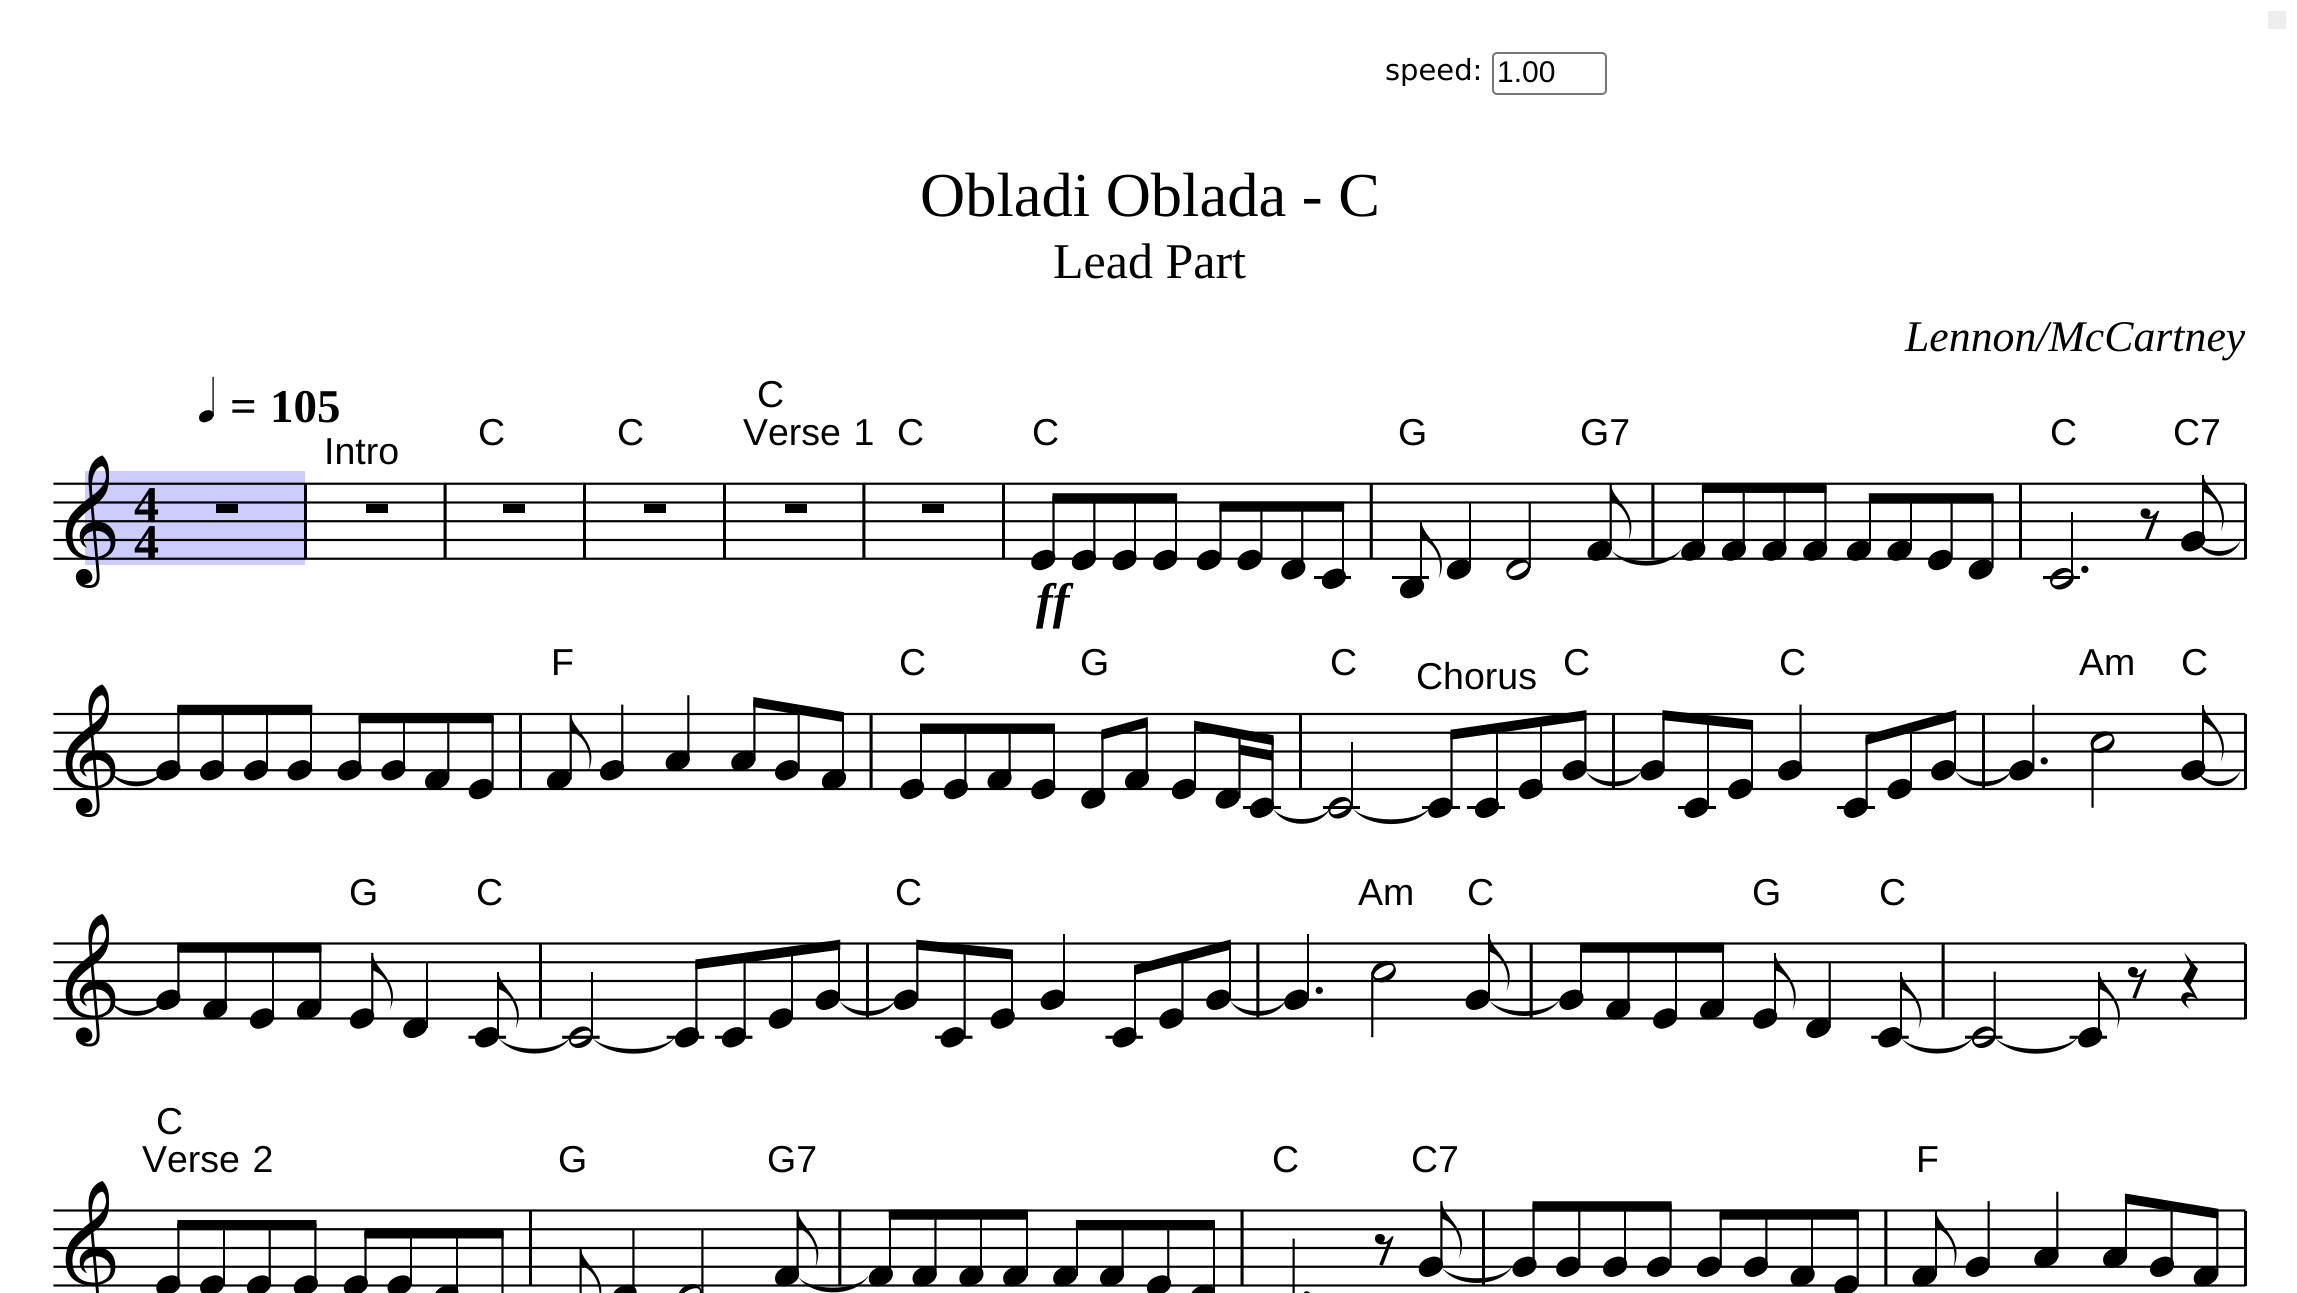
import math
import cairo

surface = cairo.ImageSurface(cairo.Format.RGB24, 2297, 1293)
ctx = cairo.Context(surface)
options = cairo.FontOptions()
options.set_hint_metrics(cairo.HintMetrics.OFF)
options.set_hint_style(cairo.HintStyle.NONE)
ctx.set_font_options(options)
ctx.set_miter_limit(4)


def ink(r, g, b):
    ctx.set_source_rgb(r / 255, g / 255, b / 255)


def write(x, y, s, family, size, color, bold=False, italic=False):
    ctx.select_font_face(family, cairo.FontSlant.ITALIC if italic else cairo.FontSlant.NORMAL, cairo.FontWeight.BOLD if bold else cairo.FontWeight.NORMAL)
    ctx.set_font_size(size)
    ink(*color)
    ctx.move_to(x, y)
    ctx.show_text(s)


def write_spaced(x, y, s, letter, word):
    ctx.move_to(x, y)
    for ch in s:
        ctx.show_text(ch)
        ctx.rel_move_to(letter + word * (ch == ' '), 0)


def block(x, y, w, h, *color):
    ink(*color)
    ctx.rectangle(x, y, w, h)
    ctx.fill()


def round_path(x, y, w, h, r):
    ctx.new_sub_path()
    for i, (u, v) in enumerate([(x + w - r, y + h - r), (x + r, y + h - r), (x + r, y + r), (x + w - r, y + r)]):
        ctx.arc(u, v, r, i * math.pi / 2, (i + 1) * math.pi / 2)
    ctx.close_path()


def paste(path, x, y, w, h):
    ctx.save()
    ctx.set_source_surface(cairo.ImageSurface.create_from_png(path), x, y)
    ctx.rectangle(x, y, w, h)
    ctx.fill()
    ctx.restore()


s1 = dict(family="DejaVu Sans", size=29, color=(0, 0, 0))
s2 = dict(family="Liberation Sans", size=30, color=(0, 0, 0))
s3 = dict(family="Liberation Serif", size=62.5, color=(0, 0, 0))
s4 = dict(family="Liberation Serif", size=50, color=(0, 0, 0))
s5 = dict(family="Liberation Serif", size=43.75, color=(0, 0, 0), italic=True)
s6 = dict(family="Liberation Serif", size=47, color=(0, 0, 0), bold=True)
s7 = dict(family="Liberation Sans", size=37.5, color=(0, 0, 0))
s8 = dict(family="Liberation Serif", size=50, color=(0, 0, 0), bold=True, italic=True)

ink(255, 255, 255)
ctx.paint()
block(2268, 11, 18, 18, 238, 238, 238)
write(1385, 80, "speed:", **s1)
round_path(1493, 53, 113, 41, 4)
ink(118, 118, 118)
ctx.stroke()
write(1497, 82, "1.00", **s2)
write(920, 216, "Obladi Oblada - C", **s3)
write(1053, 278, "Lead Part", **s4)
write(1905, 351, "Lennon/McCartney", **s5)
paste("pic1.png", 53, 376, 2194, 223)
write(230, 422, "=", **s6)
write(270, 422, "105", **s6)
write(757, 407, "C", **s7)
write(478, 445, "C", **s7)
write(617, 445, "C", **s7)
write_spaced(743, 445, "Verse 1", 0, 2)
write(897, 445, "C", **s7)
write(1032, 445, "C", **s7)
write(1398, 445, "G", **s7)
write(1580, 445, "G7", **s7)
write(2050, 445, "C", **s7)
write(2173, 445, "C7", **s7)
write(324, 464, "Intro", **s7)
ctx.select_font_face("Liberation Serif", cairo.FontSlant.NORMAL, cairo.FontWeight.BOLD)
ctx.set_font_size(50)
write_spaced(134, 521, "4", 5, 0)
write_spaced(134, 559, "4", 5, 0)
write(1036, 618, "ff", **s8)
write(551, 675, "F", **s7)
write(899, 675, "C", **s7)
write(1080, 675, "G", **s7)
write(1330, 675, "C", **s7)
write(1416, 689, "Chorus", **s7)
write(1563, 675, "C", **s7)
write(1779, 675, "C", **s7)
write(2079, 675, "Am", **s7)
write(2181, 675, "C", **s7)
paste("pic2.png", 53, 684, 2194, 141)
write(349, 905, "G", **s7)
write(476, 905, "C", **s7)
write(895, 905, "C", **s7)
write(1358, 905, "Am", **s7)
write(1467, 905, "C", **s7)
write(1752, 905, "G", **s7)
write(1879, 905, "C", **s7)
paste("pic3.png", 53, 914, 2194, 140)
write(156, 1134, "C", **s7)
write_spaced(142, 1172, "Verse 2", 0, 2)
write(558, 1172, "G", **s7)
write(767, 1172, "G7", **s7)
write(1272, 1172, "C", **s7)
write(1411, 1172, "C7", **s7)
write(1916, 1172, "F", **s7)
paste("pic4.png", 53, 1181, 2194, 112)
surface.write_to_png("screenshot.png")
